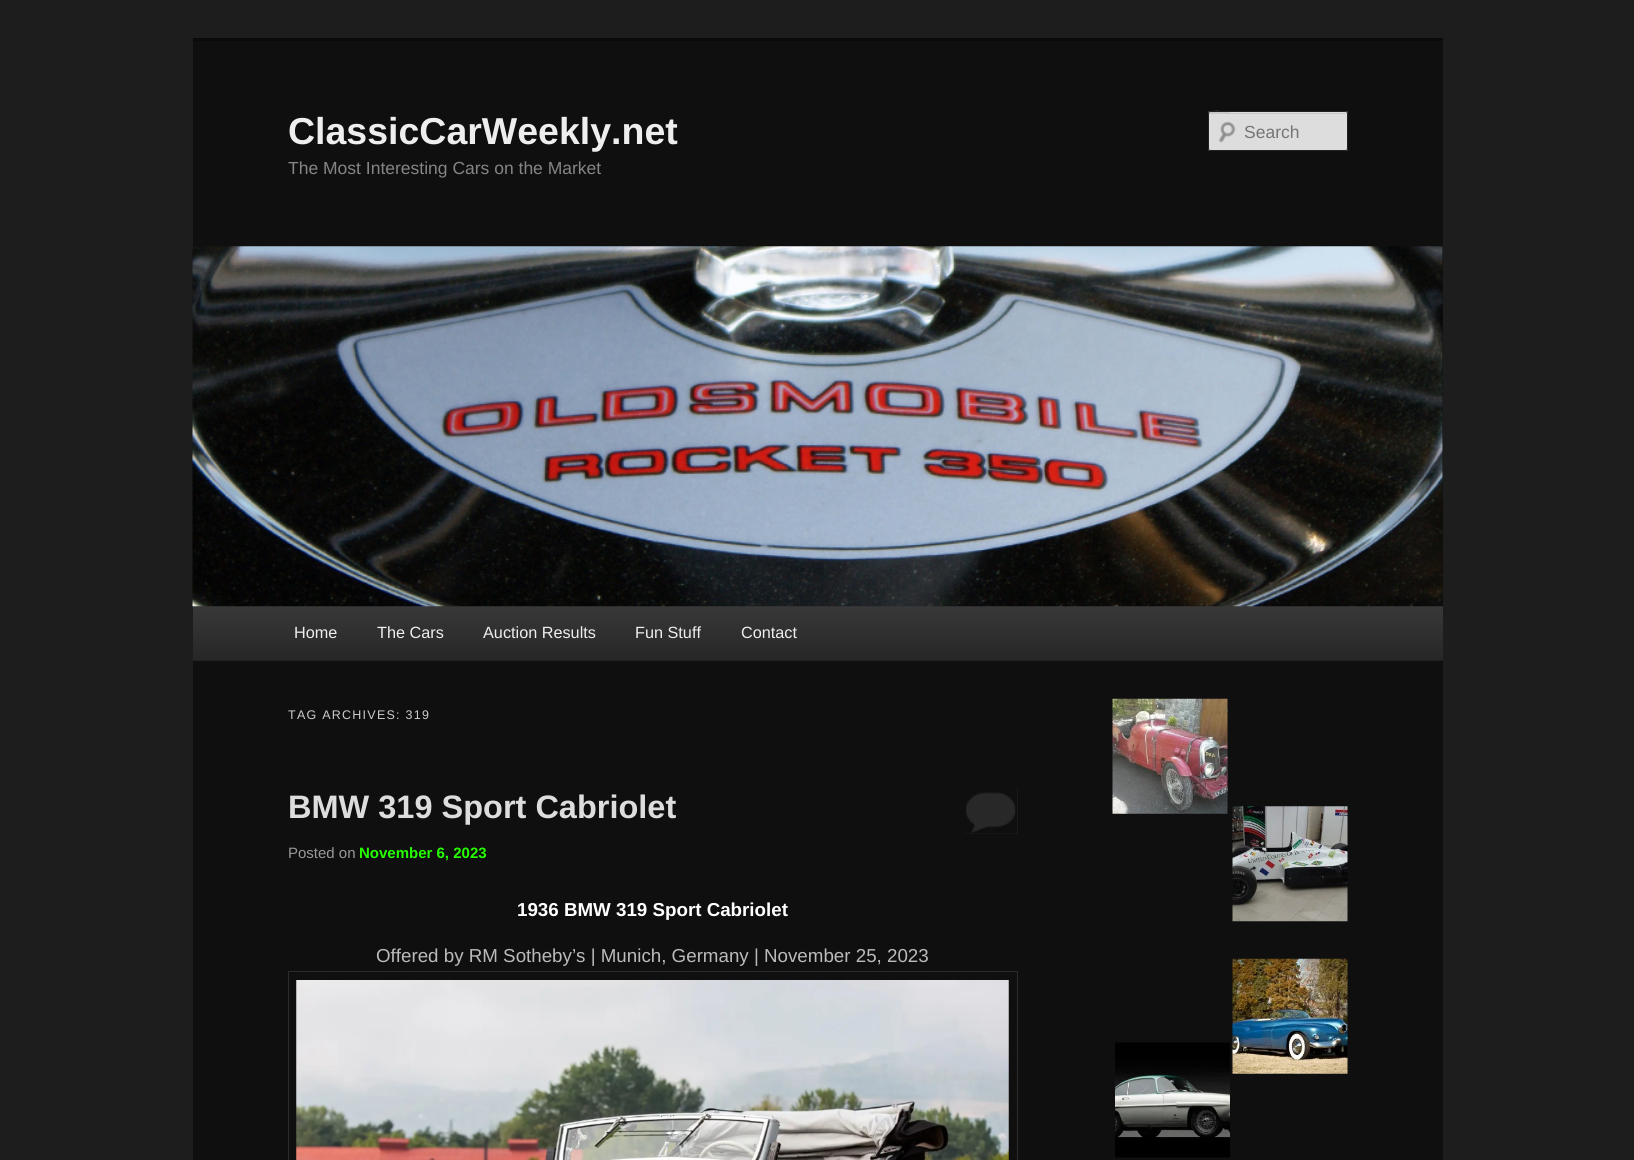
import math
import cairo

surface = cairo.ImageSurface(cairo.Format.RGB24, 1634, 1160)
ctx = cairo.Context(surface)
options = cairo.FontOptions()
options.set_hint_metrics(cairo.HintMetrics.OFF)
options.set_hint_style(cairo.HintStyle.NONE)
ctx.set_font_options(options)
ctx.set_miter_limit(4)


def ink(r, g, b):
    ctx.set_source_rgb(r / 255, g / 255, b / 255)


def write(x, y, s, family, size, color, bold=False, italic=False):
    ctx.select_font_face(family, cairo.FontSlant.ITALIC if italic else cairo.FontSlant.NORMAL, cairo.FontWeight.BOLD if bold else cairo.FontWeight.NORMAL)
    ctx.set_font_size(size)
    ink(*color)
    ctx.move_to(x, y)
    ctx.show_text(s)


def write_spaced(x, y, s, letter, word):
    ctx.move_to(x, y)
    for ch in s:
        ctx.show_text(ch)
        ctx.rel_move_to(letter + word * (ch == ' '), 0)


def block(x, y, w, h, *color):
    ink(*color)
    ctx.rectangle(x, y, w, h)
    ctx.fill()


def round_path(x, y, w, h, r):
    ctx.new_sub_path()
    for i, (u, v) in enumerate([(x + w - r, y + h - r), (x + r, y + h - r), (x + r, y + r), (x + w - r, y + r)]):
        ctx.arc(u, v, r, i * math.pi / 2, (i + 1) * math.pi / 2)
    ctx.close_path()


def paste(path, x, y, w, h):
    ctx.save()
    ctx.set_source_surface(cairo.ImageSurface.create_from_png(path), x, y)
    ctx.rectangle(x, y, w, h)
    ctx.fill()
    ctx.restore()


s1 = dict(family="Liberation Sans", size=37.5, color=(238, 238, 238), bold=True)
s2 = dict(family="Liberation Sans", size=17.5, color=(133, 133, 133))
s3 = dict(family="Liberation Sans", size=17.5, color=(117, 117, 117))
s4 = dict(family="Liberation Sans", size=16.25, color=(238, 238, 238))
s5 = dict(family="Liberation Sans", size=32.5, color=(221, 221, 221), bold=True)
s6 = dict(family="Liberation Sans", size=15, color=(153, 153, 153))
s7 = dict(family="Liberation Sans", size=15, color=(38, 255, 0), bold=True)
s8 = dict(family="Liberation Sans", size=18.75, color=(255, 255, 255), bold=True)
s9 = dict(family="Liberation Sans", size=18.75, color=(187, 187, 187))

ink(29, 29, 29)
ctx.paint()
block(193, 41, 1250, 1119, 15, 15, 15)
block(193, 38, 1250, 3, 10, 10, 10)
write(288, 144, "ClassicCarWeekly.net", **s1)
write(288, 174, "The Most Interesting Cars on the Market", **s2)
ink(221, 221, 221)
round_path(1208, 111, 140, 40, 2.5)
ctx.fill()
paste("pic1.png", 1218, 121, 18, 22)
ink(199, 199, 199)
ctx.new_path()
ctx.move_to(1210, 114)
ctx.line_to(1345, 114)
ctx.curve_to(1346, 114, 1346, 114, 1346, 115)
ctx.line_to(1346, 113)
ctx.line_to(1232, 113)
ctx.curve_to(1232, 113, 1209, 107, 1209, 115)
ctx.curve_to(1209, 114, 1209, 114, 1210, 114)
ctx.close_path()
ctx.fill()
round_path(1208.5, 111.5, 139, 39, 2)
ink(34, 34, 34)
ctx.set_line_width(1)
ctx.stroke()
write(1244, 138, "Search", **s3)
gradient = cairo.LinearGradient(818, 606, 818, 660)
gradient.add_color_stop_rgba(0, 0.22, 0.22, 0.22, 1)
gradient.add_color_stop_rgba(1, 0.153, 0.153, 0.153, 1)
ctx.set_source(gradient)
ctx.rectangle(193, 606, 1250, 54)
ctx.fill()
paste("pic2.png", 192, 246, 1251, 361)
block(193, 660, 1250, 1, 34, 34, 34)
write(294, 638, "Home", **s4)
write(377, 638, "The Cars", **s4)
write(483, 638, "Auction Results", **s4)
write(635, 638, "Fun Stuff", **s4)
write(741, 638, "Contact", **s4)
ctx.set_font_size(12.5)
ink(204, 204, 204)
write_spaced(288, 719, "TAG ARCHIVES: 319", 1.25, 0)
write(288, 818, "BMW 319 Sport Cabriolet", **s5)
block(964, 789, 54, 45, 40, 40, 40)
paste("pic3.png", 964, 789, 54, 45)
write(288, 858, "Posted on", **s6)
write(359, 858, "November 6, 2023", **s7)
write(517, 916, "1936 BMW 319 Sport Cabriolet", **s8)
write(376, 962, "Offered by RM Sotheby’s | Munich, Germany | November 25, 2023", **s9)
ctx.rectangle(288.5, 971.5, 729, 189)
ink(44, 44, 44)
ctx.stroke()
paste("pic4.png", 296, 980, 713, 180)
paste("pic5.png", 1112, 698, 116, 116)
paste("pic6.png", 1232, 806, 116, 116)
paste("pic7.png", 1232, 958, 116, 116)
paste("pic8.png", 1115, 1042, 115, 116)
surface.write_to_png("screenshot.png")
